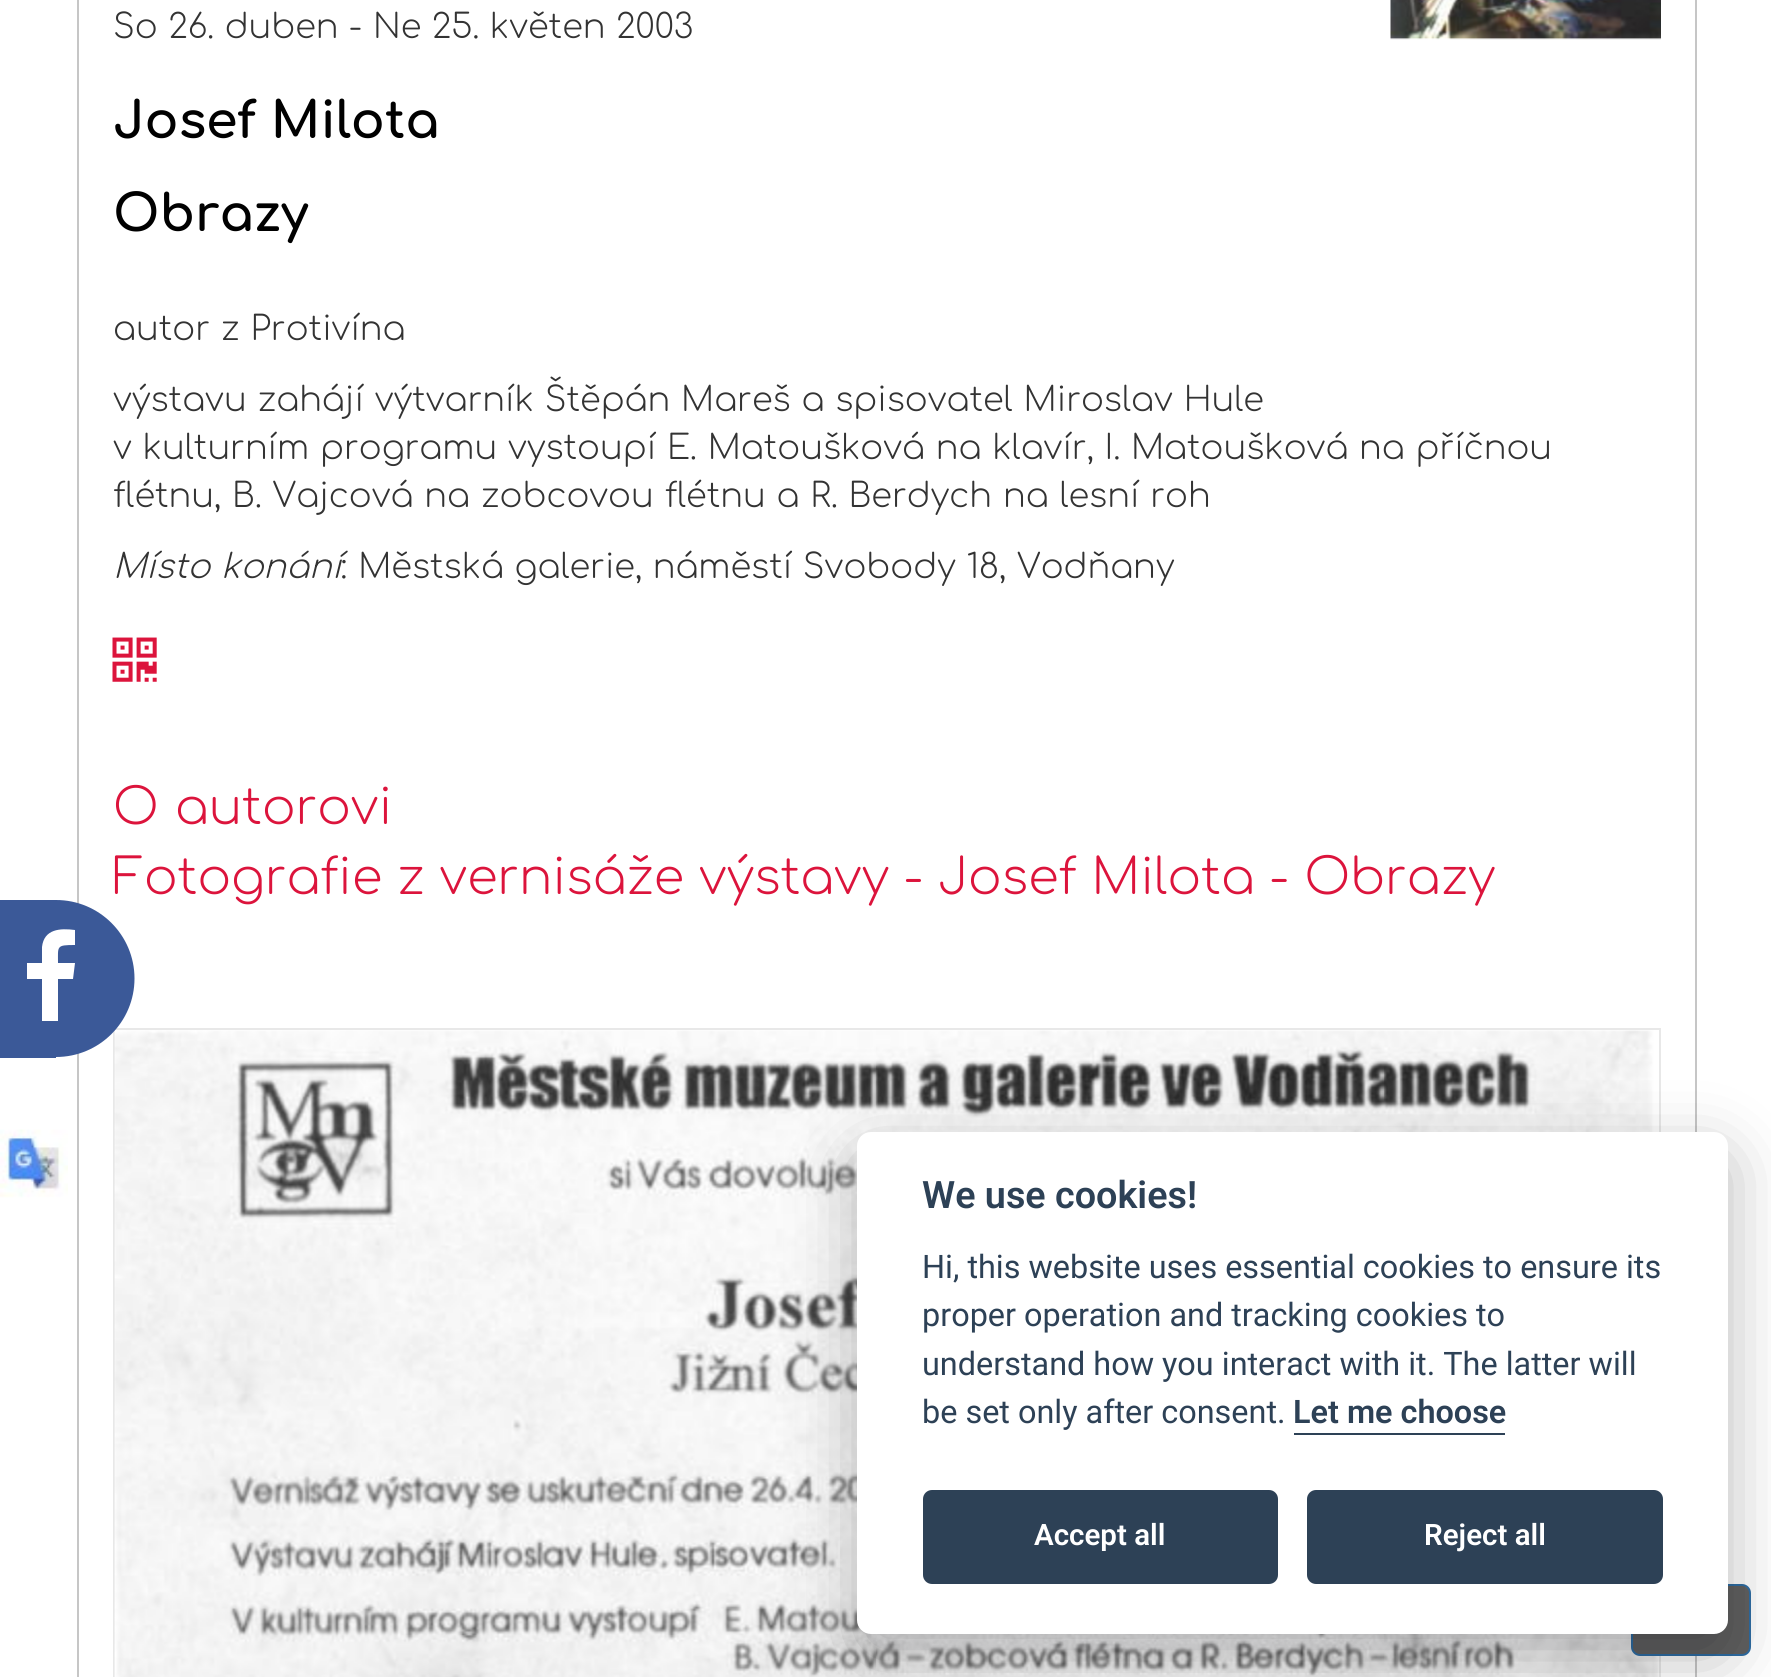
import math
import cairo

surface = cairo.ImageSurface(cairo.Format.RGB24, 1771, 1677)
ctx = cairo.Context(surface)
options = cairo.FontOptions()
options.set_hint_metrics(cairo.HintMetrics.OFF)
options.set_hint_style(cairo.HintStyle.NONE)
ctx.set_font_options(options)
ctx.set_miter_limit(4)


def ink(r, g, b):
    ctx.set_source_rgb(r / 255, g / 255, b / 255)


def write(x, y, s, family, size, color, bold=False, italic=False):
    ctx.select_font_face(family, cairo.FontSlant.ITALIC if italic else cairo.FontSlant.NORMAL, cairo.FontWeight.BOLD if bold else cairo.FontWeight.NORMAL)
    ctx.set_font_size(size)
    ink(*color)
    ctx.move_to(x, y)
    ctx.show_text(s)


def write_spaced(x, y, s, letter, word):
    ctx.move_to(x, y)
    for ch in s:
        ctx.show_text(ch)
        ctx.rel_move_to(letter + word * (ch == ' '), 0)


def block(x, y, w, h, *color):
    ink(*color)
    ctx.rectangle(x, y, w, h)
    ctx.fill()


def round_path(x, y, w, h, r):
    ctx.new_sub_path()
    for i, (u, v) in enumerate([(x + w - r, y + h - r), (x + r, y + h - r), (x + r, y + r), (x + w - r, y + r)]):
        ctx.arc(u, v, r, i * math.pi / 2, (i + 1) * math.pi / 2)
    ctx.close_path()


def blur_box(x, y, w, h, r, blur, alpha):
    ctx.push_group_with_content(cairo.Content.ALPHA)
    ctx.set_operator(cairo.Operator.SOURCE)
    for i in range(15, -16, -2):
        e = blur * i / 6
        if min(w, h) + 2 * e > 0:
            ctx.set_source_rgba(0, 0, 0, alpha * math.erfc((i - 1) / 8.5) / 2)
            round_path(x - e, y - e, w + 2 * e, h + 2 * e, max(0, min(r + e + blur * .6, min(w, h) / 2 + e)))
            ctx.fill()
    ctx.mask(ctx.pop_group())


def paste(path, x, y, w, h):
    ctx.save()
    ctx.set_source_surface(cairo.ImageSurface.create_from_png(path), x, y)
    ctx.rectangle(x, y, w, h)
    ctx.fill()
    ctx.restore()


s1 = dict(family="Comfortaa", size=50.5, color=(0, 0, 0), bold=True)
s2 = dict(family="Roboto SemiBold", size=37.75, color=(45, 65, 86))
s3 = dict(family="Roboto", size=32.4, color=(45, 65, 86))
s4 = dict(family="Roboto SemiBold", size=32.4, color=(45, 65, 86))
s5 = dict(family="Roboto SemiBold", size=29.5, color=(255, 255, 255))

ink(255, 255, 255)
ctx.paint()
ctx.rectangle(78, -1, 1618, 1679)
ink(198, 198, 198)
ctx.stroke()
ctx.select_font_face("Comfortaa Light")
ctx.set_font_size(33.75)
ink(51, 51, 51)
write_spaced(113, 38, "So 26. duben - Ne 25. květen 2003", 0, 0.75)
paste("pic1.png", 1390, 0, 271, 40)
write(113, 138, "Josef Milota", **s1)
write(113, 231, "Obrazy", **s1)
ctx.select_font_face("Comfortaa Light")
ctx.set_font_size(33.75)
ink(51, 51, 51)
write_spaced(113, 340, "autor z Protivína", 0, 1)
write_spaced(113, 411, "výstavu zahájí výtvarník Štěpán Mareš a spisovatel Miroslav Hule", 0, 1)
write_spaced(113, 459, "v kulturním programu vystoupí E. Matoušková na klavír, I. Matoušková na příčnou", 0, 0.9)
write_spaced(113, 507, "flétnu, B. Vajcová na zobcovou flétnu a R. Berdych na lesní roh", 0, 1)
ctx.select_font_face("Comfortaa Light", cairo.FontSlant.ITALIC)
write_spaced(113, 578, "Místo konání", 0, 1)
ctx.select_font_face("Comfortaa Light")
write_spaced(341, 578, ": Městská galerie, náměstí Svobody 18, Vodňany", 0, 0.75)
paste("pic2.png", 112, 637, 45, 45)
ctx.set_font_size(49.5)
ink(220, 20, 60)
write_spaced(113, 824, "O autorovi", 0, 2)
write_spaced(113, 894, "Fotografie z vernisáže výstavy -", 0, 0.5)
write_spaced(938, 894, "Josef Milota - Obrazy", 0, 0.75)
ctx.rectangle(114, 1029, 1546, 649)
ink(232, 232, 232)
ctx.stroke()
paste("pic3.png", 114, 1030, 1545, 647)
block(0, 900, 56, 158, 59, 89, 152)
ctx.arc(56, 978.5, 78.5, 0, 2 * math.pi)
ctx.fill()
ink(255, 255, 255)
ctx.new_path()
ctx.move_to(42, 1021)
ctx.line_to(42, 979)
ctx.line_to(27, 979)
ctx.line_to(27, 963)
ctx.line_to(42, 963)
ctx.line_to(42, 947)
ctx.curve_to(44, 929, 60, 928, 75, 930)
ctx.line_to(75, 945)
ctx.curve_to(56, 945, 58, 946, 58, 963)
ctx.line_to(75, 963)
ctx.line_to(73, 979)
ctx.line_to(58, 979)
ctx.line_to(58, 1021)
ctx.close_path()
ctx.fill()
paste("pic4.png", 0, 1129, 68, 69)
ink(97, 97, 97)
round_path(1632, 1585, 118, 70, 8)
ctx.fill_preserve()
ink(46, 109, 164)
ctx.stroke()
ink(2, 2, 3)
blur_box(857, 1154, 871, 502, 14, 34, 0.28)
ink(255, 255, 255)
round_path(857, 1132, 871, 502, 14)
ctx.fill()
write(922, 1208, "We use cookies!", **s2)
write(922, 1278, "Hi, this website uses essential cookies to ensure its", **s3)
write(922, 1326, "proper operation and tracking cookies to", **s3)
write(922, 1375, "understand how you interact with it. The latter will", **s3)
write(922, 1423, "be set only after consent.", **s3)
write(1293, 1423, "Let me choose", **s4)
block(1294, 1433, 211, 2, 45, 65, 86)
round_path(923, 1490, 355, 94, 9)
ctx.fill()
write(1034, 1545, "Accept all", **s5)
ink(45, 65, 86)
round_path(1307, 1490, 356, 94, 9)
ctx.fill()
write(1424, 1545, "Reject all", **s5)
surface.write_to_png("screenshot.png")
